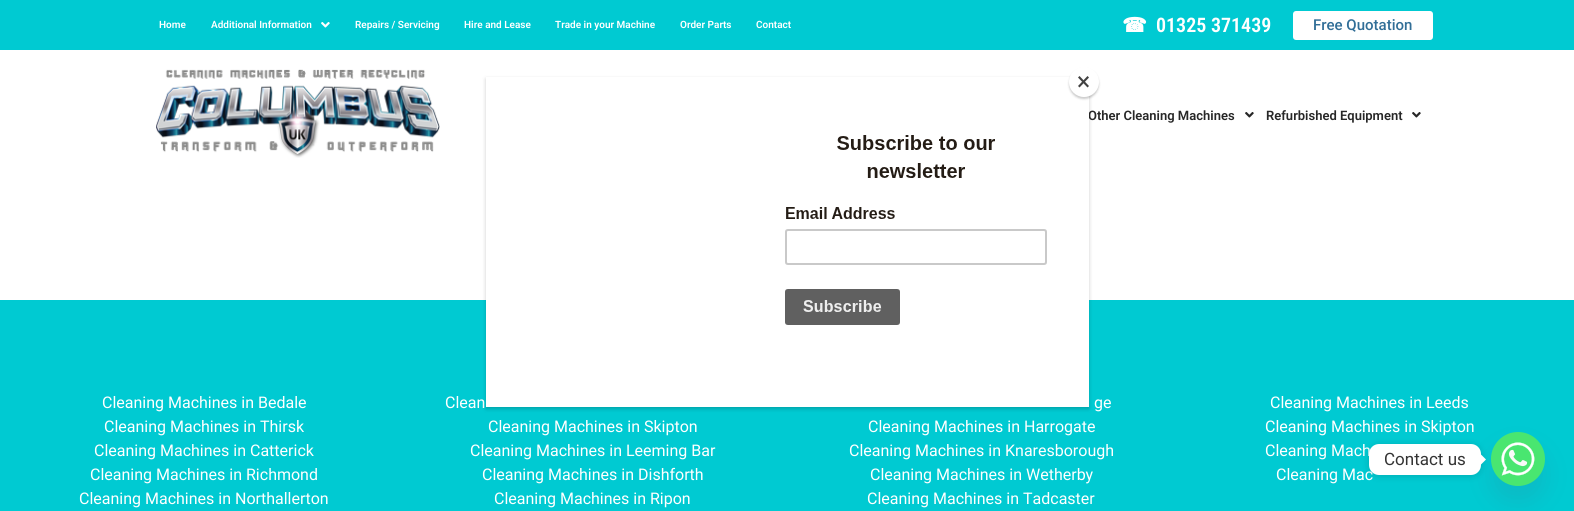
import math
import cairo

surface = cairo.ImageSurface(cairo.Format.RGB24, 1574, 511)
ctx = cairo.Context(surface)
options = cairo.FontOptions()
options.set_hint_metrics(cairo.HintMetrics.OFF)
options.set_hint_style(cairo.HintStyle.NONE)
ctx.set_font_options(options)
ctx.set_miter_limit(4)


def ink(r, g, b):
    ctx.set_source_rgb(r / 255, g / 255, b / 255)


def write(x, y, s, family, size, color, bold=False, italic=False):
    ctx.select_font_face(family, cairo.FontSlant.ITALIC if italic else cairo.FontSlant.NORMAL, cairo.FontWeight.BOLD if bold else cairo.FontWeight.NORMAL)
    ctx.set_font_size(size)
    ink(*color)
    ctx.move_to(x, y)
    ctx.show_text(s)


def block(x, y, w, h, *color):
    ink(*color)
    ctx.rectangle(x, y, w, h)
    ctx.fill()


def round_path(x, y, w, h, r):
    ctx.new_sub_path()
    for i, (u, v) in enumerate([(x + w - r, y + h - r), (x + r, y + h - r), (x + r, y + r), (x + w - r, y + r)]):
        ctx.arc(u, v, r, i * math.pi / 2, (i + 1) * math.pi / 2)
    ctx.close_path()


def blur_box(x, y, w, h, r, blur, alpha):
    ctx.push_group_with_content(cairo.Content.ALPHA)
    ctx.set_operator(cairo.Operator.SOURCE)
    for i in range(15, -16, -2):
        e = blur * i / 6
        if min(w, h) + 2 * e > 0:
            ctx.set_source_rgba(0, 0, 0, alpha * math.erfc((i - 1) / 8.5) / 2)
            round_path(x - e, y - e, w + 2 * e, h + 2 * e, max(0, min(r + e + blur * .6, min(w, h) / 2 + e)))
            ctx.fill()
    ctx.mask(ctx.pop_group())


def paste(path, x, y, w, h):
    ctx.save()
    ctx.set_source_surface(cairo.ImageSurface.create_from_png(path), x, y)
    ctx.rectangle(x, y, w, h)
    ctx.fill()
    ctx.restore()


s1 = dict(family="Roboto SemiBold", size=10, color=(255, 255, 255))
s2 = dict(family="DejaVu Sans", size=20, color=(255, 255, 255), bold=True)
s3 = dict(family="Roboto Condensed SemiBold", size=20, color=(255, 255, 255))
s4 = dict(family="Roboto Medium", size=15, color=(49, 110, 151))
s5 = dict(family="Roboto SemiBold", size=13, color=(39, 39, 39))
s6 = dict(family="Roboto", size=16, color=(255, 255, 255))
s7 = dict(family="Roboto", size=17, color=(51, 51, 51))

ink(255, 255, 255)
ctx.paint()
block(0, 0, 1574, 50, 0, 202, 210)
write(159, 28, "Home", **s1)
write(211, 28, "Additional Information", **s1)
paste("pic1.png", 321, 22, 9, 6)
write(355, 28, "Repairs / Servicing", **s1)
write(464, 28, "Hire and Lease", **s1)
write(555, 28, "Trade in your Machine", **s1)
write(680, 28, "Order Parts", **s1)
write(756, 28, "Contact", **s1)
write(1122, 32, "☎", **s2)
write(1156, 32, "01325 371439", **s3)
round_path(1293, 11, 140, 29, 3)
ctx.fill()
write(1313, 30, "Free Quotation", **s4)
paste("pic2.png", 156, 69, 284, 89)
write(1088, 120, "Other Cleaning Machines", **s5)
paste("pic3.png", 1245, 112, 9, 6)
write(1266, 120, "Refurbished Equipment", **s5)
paste("pic3.png", 1412, 112, 9, 6)
block(0, 300, 1574, 211, 0, 202, 210)
write(102, 408, "Cleaning Machines in Bedale", **s6)
write(104, 432, "Cleaning Machines in Thirsk", **s6)
write(94, 456, "Cleaning Machines in Catterick", **s6)
write(90, 480, "Cleaning Machines in Richmond", **s6)
write(79, 504, "Cleaning Machines in Northallerton", **s6)
write(445, 408, "Clean", **s6)
write(488, 432, "Cleaning Machines in Skipton", **s6)
write(470, 456, "Cleaning Machines in Leeming Bar", **s6)
write(482, 480, "Cleaning Machines in Dishforth", **s6)
write(494, 504, "Cleaning Machines in Ripon", **s6)
write(1094, 408, "ge", **s6)
write(868, 432, "Cleaning Machines in Harrogate", **s6)
write(849, 456, "Cleaning Machines in Knaresborough", **s6)
write(870, 480, "Cleaning Machines in Wetherby", **s6)
write(867, 504, "Cleaning Machines in Tadcaster", **s6)
write(1270, 408, "Cleaning Machines in Leeds", **s6)
write(1265, 432, "Cleaning Machines in Skipton", **s6)
write(1265, 456, "Cleaning Mach", **s6)
write(1276, 480, "Cleaning Mac", **s6)
ink(0, 0, 0)
blur_box(1069, 69, 30, 30, 15, 1, 0.2)
ctx.save()
ctx.set_fill_rule(cairo.FillRule.EVEN_ODD)
ctx.new_path()
ctx.move_to(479, 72)
ctx.line_to(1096, 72)
ctx.line_to(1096, 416)
ctx.line_to(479, 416)
ctx.close_path()
ctx.move_to(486, 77)
ctx.line_to(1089, 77)
ctx.line_to(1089, 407)
ctx.line_to(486, 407)
ctx.close_path()
ctx.clip()
blur_box(486, 79, 603, 330, 0, 2, 0.2)
ctx.restore()
ink(255, 255, 255)
ctx.arc(1084, 82, 15, 0, 2 * math.pi)
ctx.fill()
ink(65, 65, 65)
ctx.new_path()
ctx.move_to(1087.5, 76)
ctx.line_to(1089, 77.5)
ctx.line_to(1079.5, 87.5)
ctx.line_to(1078, 86)
ctx.close_path()
ctx.fill()
ctx.new_path()
ctx.move_to(1078, 77.5)
ctx.line_to(1079.5, 76)
ctx.line_to(1089, 86)
ctx.line_to(1087.5, 87.5)
ctx.close_path()
ctx.fill()
paste("pic4.png", 486, 110, 603, 297)
ink(73, 104, 126)
blur_box(1491, 448, 54, 54, 27, 12, 0.16)
paste("pic5.png", 1491, 432, 54, 54)
ink(0, 0, 0)
blur_box(1369, 445, 112, 31, 10, 4, 0.15)
ink(255, 255, 255)
round_path(1369, 444, 112, 31, 10)
ctx.fill()
write(1384, 465, "Contact us", **s7)
ink(255, 255, 255)
ctx.new_path()
ctx.move_to(1481, 464.5)
ctx.line_to(1481, 454.5)
ctx.line_to(1486, 459.5)
ctx.close_path()
ctx.fill()
surface.write_to_png("screenshot.png")
